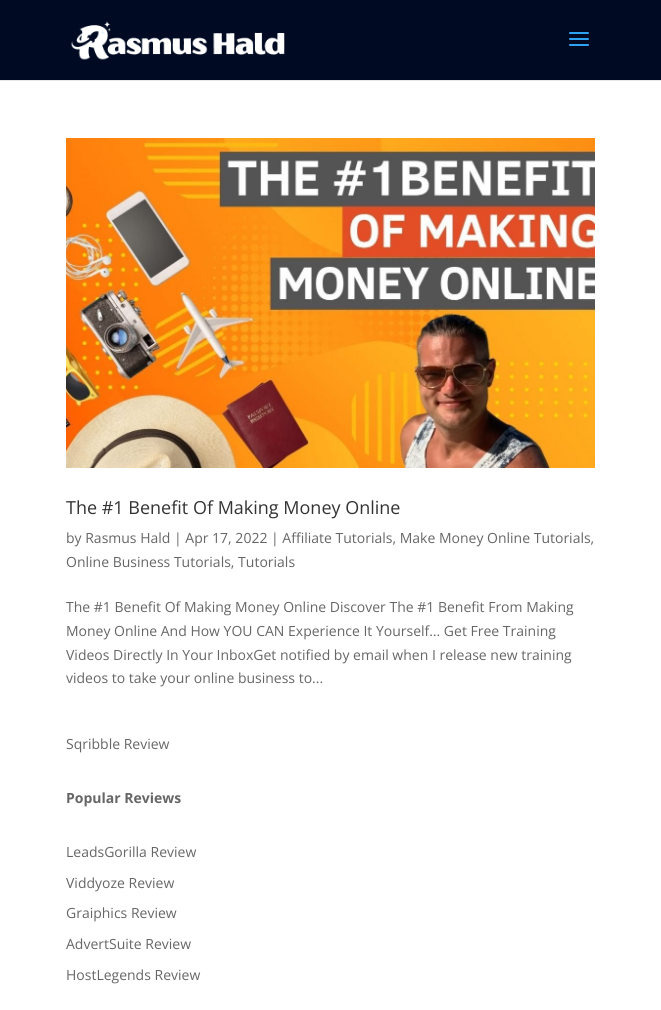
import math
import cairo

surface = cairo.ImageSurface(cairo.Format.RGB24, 661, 1010)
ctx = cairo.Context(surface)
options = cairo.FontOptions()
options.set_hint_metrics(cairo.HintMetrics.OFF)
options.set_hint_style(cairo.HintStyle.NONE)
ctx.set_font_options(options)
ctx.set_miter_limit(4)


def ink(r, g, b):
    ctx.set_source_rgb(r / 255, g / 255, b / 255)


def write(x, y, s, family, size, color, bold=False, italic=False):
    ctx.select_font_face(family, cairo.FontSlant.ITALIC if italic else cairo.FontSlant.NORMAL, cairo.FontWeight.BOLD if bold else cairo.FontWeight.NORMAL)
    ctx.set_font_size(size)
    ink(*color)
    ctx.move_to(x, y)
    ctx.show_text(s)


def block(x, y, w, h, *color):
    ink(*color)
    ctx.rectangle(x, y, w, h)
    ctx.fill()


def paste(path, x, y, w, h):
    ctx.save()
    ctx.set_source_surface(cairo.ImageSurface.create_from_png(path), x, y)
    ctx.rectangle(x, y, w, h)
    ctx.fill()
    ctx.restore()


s1 = dict(family="Open Sans", size=18, color=(51, 51, 51))
s2 = dict(family="Open Sans", size=14, color=(102, 102, 102))
s3 = dict(family="Open Sans", size=14, color=(102, 102, 102), bold=True)

ink(255, 255, 255)
ctx.paint()
block(0, 80, 661, 1, 230, 230, 230)
block(0, 0, 661, 80, 0, 11, 35)
paste("pic1.png", 71, 21, 214, 39)
paste("pic2.png", 569, 32, 20, 14)
paste("pic3.png", 66, 138, 529, 330)
write(66, 514, "The #1 Benefit Of Making Money Online", **s1)
write(66, 543, "by Rasmus Hald | Apr 17, 2022 | Affiliate Tutorials, Make Money Online Tutorials,", **s2)
write(66, 567, "Online Business Tutorials, Tutorials", **s2)
write(66, 612, "The #1 Benefit Of Making Money Online Discover The #1 Benefit From Making", **s2)
write(66, 636, "Money Online And How YOU CAN Experience It Yourself… Get Free Training", **s2)
write(66, 660, "Videos Directly In Your InboxGet notified by email when I release new training", **s2)
write(66, 683, "videos to take your online business to...", **s2)
write(66, 749, "Sqribble Review", **s2)
write(66, 803, "Popular Reviews", **s3)
write(66, 857, "LeadsGorilla Review", **s2)
write(66, 888, "Viddyoze Review", **s2)
write(66, 918, "Graiphics Review", **s2)
write(66, 949, "AdvertSuite Review", **s2)
write(66, 980, "HostLegends Review", **s2)
surface.write_to_png("screenshot.png")
